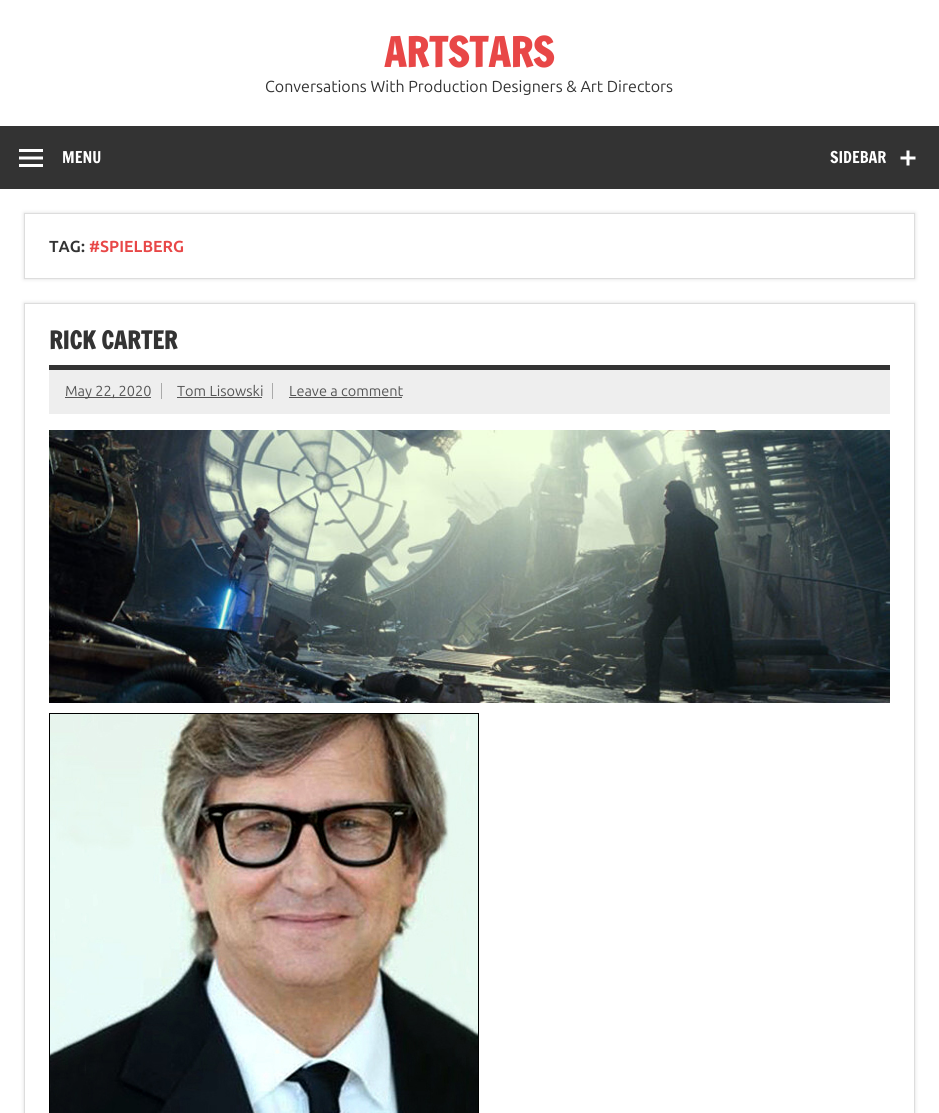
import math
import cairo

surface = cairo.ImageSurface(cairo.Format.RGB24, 939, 1113)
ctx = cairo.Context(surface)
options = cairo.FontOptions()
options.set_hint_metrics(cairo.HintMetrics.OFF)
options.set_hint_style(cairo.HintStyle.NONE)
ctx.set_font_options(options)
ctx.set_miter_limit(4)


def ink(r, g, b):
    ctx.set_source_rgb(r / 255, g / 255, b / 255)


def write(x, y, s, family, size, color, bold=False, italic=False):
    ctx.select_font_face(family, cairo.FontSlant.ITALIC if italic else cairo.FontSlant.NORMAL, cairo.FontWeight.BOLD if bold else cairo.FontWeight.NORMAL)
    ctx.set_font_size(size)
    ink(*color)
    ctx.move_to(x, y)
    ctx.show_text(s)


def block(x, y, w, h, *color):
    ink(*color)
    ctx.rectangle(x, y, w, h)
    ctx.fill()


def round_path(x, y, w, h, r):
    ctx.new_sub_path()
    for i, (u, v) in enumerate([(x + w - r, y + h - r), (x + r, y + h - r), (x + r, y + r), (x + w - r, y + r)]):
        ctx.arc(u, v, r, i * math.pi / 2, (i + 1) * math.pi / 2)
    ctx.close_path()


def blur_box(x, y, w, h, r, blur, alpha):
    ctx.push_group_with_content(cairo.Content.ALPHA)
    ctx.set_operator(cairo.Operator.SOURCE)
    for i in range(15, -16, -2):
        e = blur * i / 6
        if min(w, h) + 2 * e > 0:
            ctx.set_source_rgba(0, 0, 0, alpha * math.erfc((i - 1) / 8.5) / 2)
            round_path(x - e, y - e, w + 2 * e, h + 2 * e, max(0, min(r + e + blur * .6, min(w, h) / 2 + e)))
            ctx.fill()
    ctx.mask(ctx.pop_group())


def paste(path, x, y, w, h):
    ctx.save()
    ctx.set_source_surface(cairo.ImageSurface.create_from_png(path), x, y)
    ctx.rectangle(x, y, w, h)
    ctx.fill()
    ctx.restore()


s1 = dict(family="Francois One", size=40, color=(232, 71, 71), bold=True)
s2 = dict(family="Ubuntu", size=16, color=(51, 51, 51))
s3 = dict(family="Francois One", size=16, color=(255, 255, 255))
s4 = dict(family="Ubuntu", size=16, color=(51, 51, 51), bold=True)
s5 = dict(family="Ubuntu", size=16, color=(232, 71, 71), bold=True)
s6 = dict(family="Francois One", size=24, color=(51, 51, 51), bold=True)
s7 = dict(family="Ubuntu", size=14.5, color=(85, 85, 85))

ink(255, 255, 255)
ctx.paint()
write(384, 67, "ARTSTARS", **s1)
write(265, 92, "Conversations With Production Designers & Art Directors", **s2)
block(0, 126, 939, 63, 51, 51, 51)
paste("pic1.png", 19, 149, 24, 18)
write(62, 163, "MENU", **s3)
write(830, 163, "SIDEBAR", **s3)
paste("pic2.png", 900, 150, 16, 16)
ctx.save()
ctx.set_fill_rule(cairo.FillRule.EVEN_ODD)
ctx.new_path()
ctx.move_to(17, 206)
ctx.line_to(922, 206)
ctx.line_to(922, 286)
ctx.line_to(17, 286)
ctx.close_path()
ctx.move_to(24, 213)
ctx.line_to(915, 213)
ctx.line_to(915, 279)
ctx.line_to(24, 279)
ctx.close_path()
ctx.clip()
ink(221, 221, 221)
blur_box(24, 213, 891, 66, 0, 2, 1)
ctx.restore()
ctx.rectangle(24.5, 213.5, 890, 65)
ink(221, 221, 221)
ctx.set_line_width(1)
ctx.stroke()
write(49, 252, "TAG:", **s4)
write(89, 252, "#SPIELBERG", **s5)
ctx.save()
ctx.set_fill_rule(cairo.FillRule.EVEN_ODD)
ctx.new_path()
ctx.move_to(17, 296)
ctx.line_to(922, 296)
ctx.line_to(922, 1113)
ctx.line_to(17, 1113)
ctx.close_path()
ctx.move_to(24, 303)
ctx.line_to(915, 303)
ctx.line_to(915, 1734)
ctx.line_to(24, 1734)
ctx.close_path()
ctx.clip()
ink(221, 221, 221)
blur_box(24, 303, 891, 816, 0, 2, 1)
ctx.restore()
ctx.rectangle(24.5, 303.5, 890, 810)
ink(221, 221, 221)
ctx.stroke()
block(49, 365, 841, 5, 51, 51, 51)
write(49, 349, "RICK CARTER", **s6)
block(49, 370, 841, 44, 238, 238, 238)
block(65, 397, 86, 1, 85, 85, 85)
write(65, 396, "May 22, 2020", **s7)
block(161, 383, 1, 16, 170, 170, 170)
write(177, 396, "Tom Lisowski", **s7)
block(272, 383, 1, 16, 170, 170, 170)
block(177, 397, 85, 1, 85, 85, 85)
write(289, 396, "Leave a comment", **s7)
block(289, 397, 113, 1, 85, 85, 85)
paste("pic3.png", 49, 430, 841, 273)
paste("pic4.png", 49, 713, 430, 400)
surface.write_to_png("screenshot.png")
